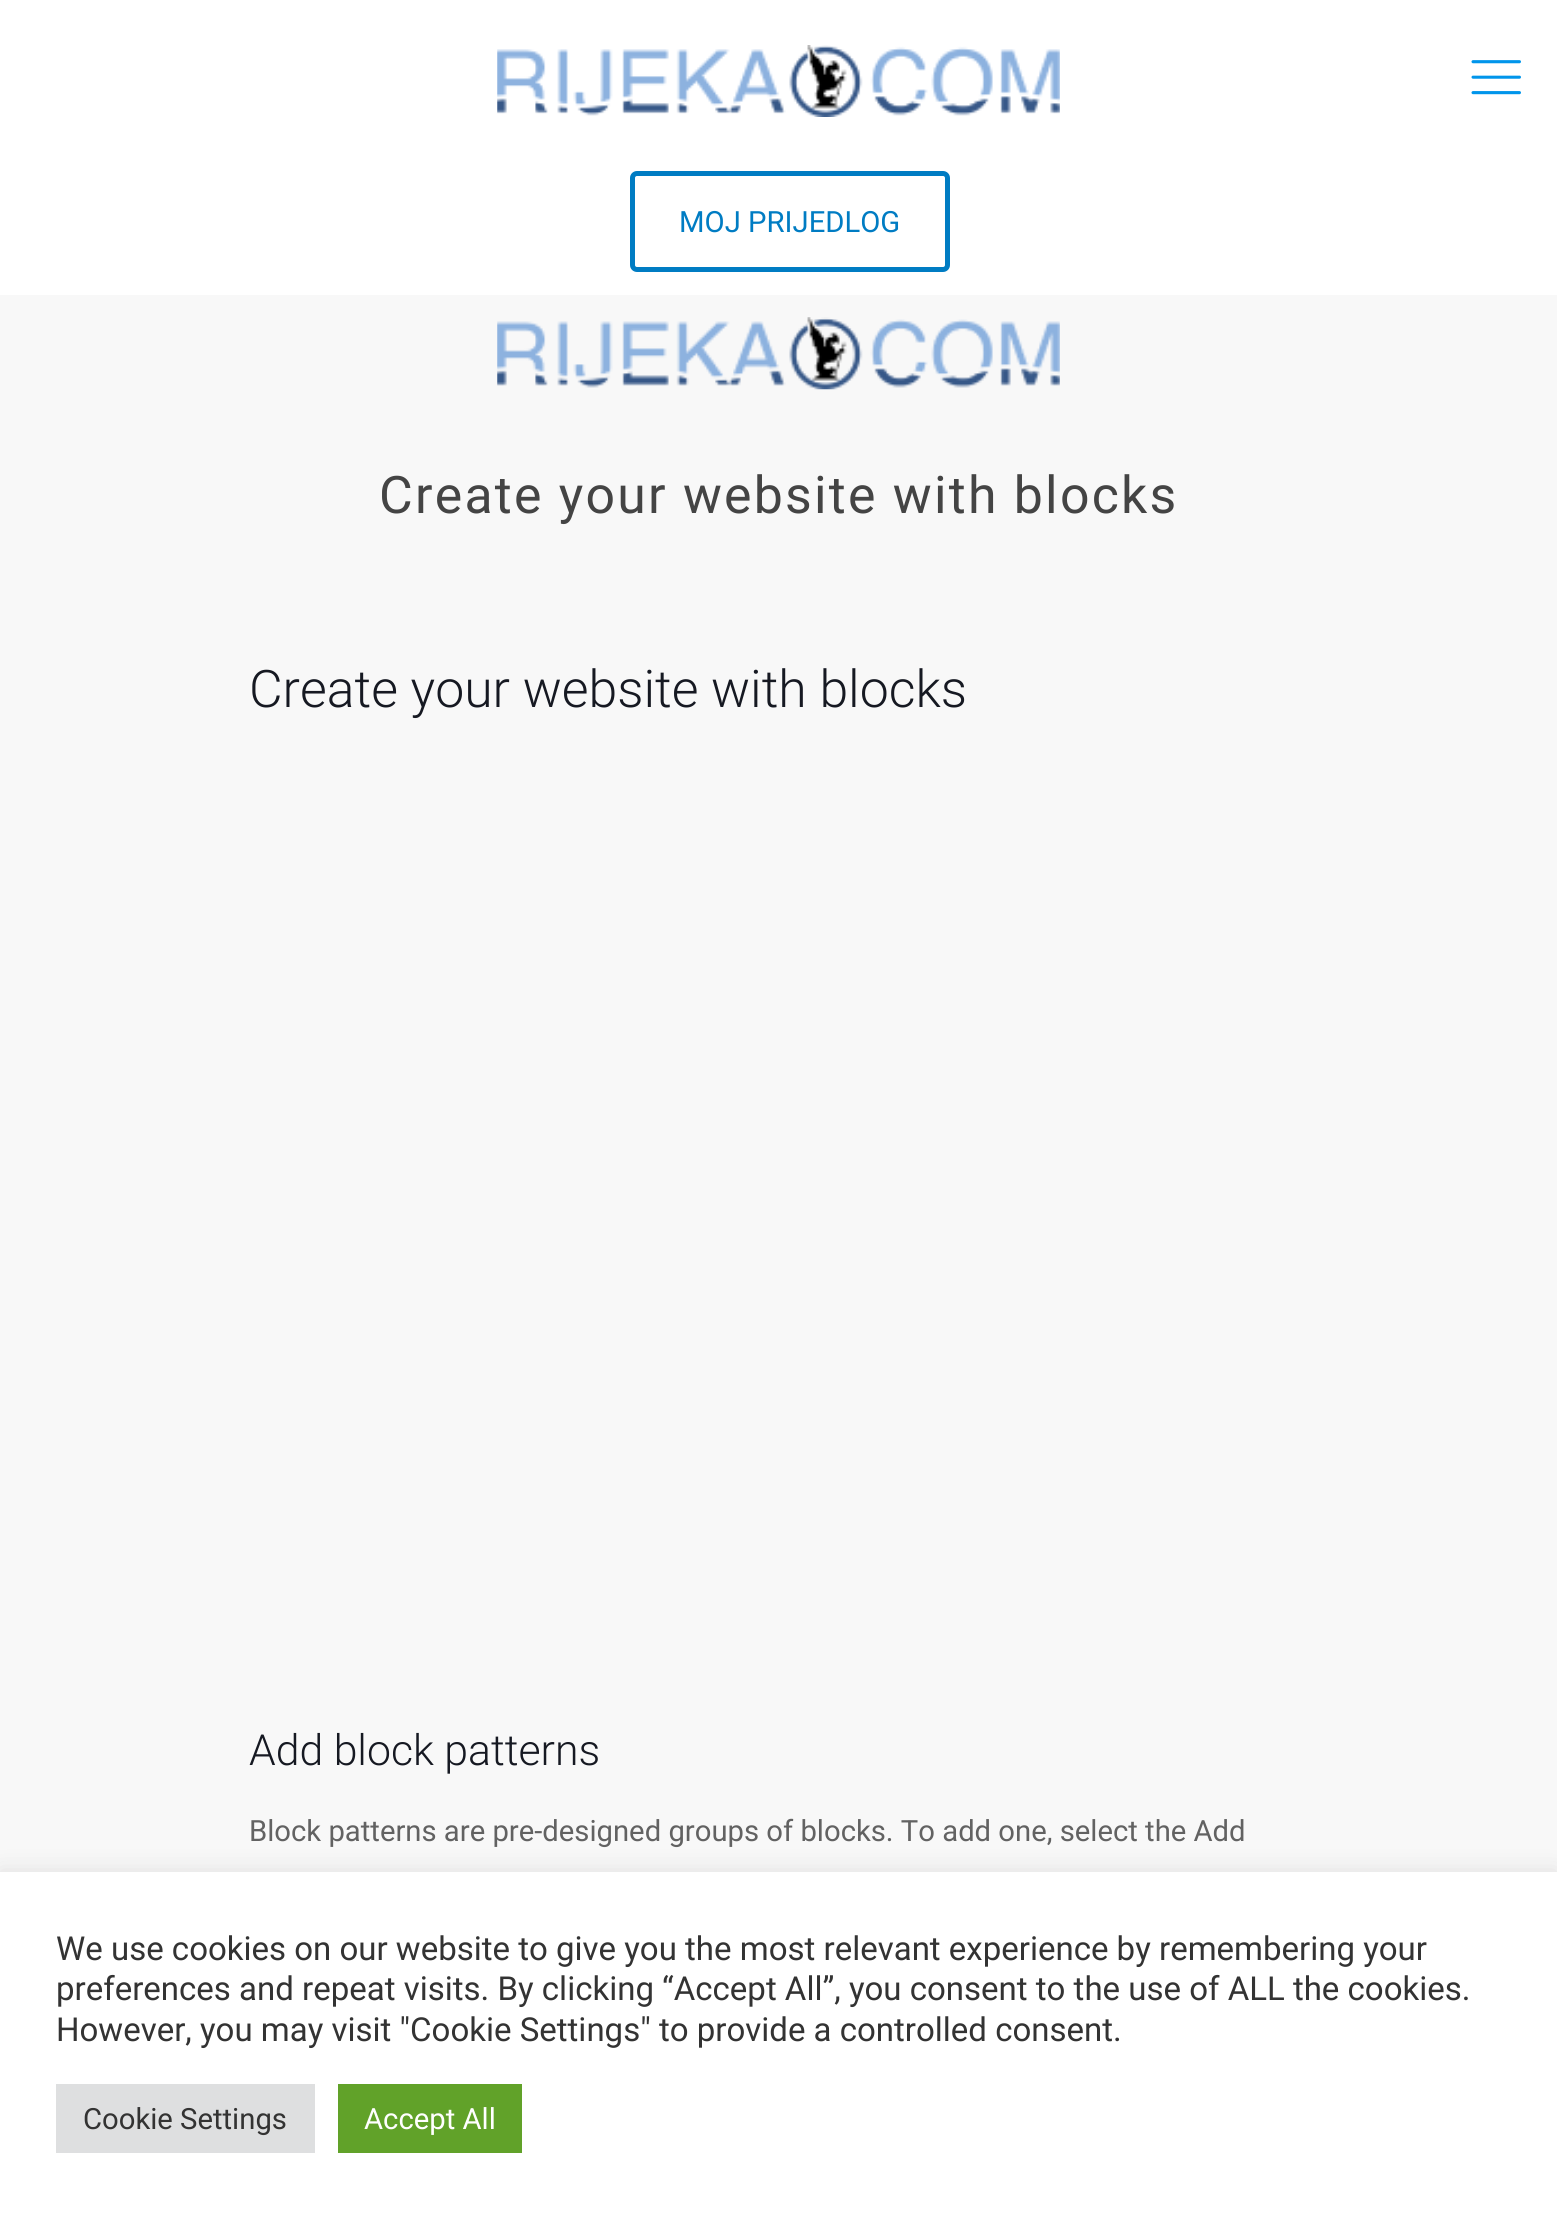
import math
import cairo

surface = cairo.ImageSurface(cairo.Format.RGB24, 1557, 2219)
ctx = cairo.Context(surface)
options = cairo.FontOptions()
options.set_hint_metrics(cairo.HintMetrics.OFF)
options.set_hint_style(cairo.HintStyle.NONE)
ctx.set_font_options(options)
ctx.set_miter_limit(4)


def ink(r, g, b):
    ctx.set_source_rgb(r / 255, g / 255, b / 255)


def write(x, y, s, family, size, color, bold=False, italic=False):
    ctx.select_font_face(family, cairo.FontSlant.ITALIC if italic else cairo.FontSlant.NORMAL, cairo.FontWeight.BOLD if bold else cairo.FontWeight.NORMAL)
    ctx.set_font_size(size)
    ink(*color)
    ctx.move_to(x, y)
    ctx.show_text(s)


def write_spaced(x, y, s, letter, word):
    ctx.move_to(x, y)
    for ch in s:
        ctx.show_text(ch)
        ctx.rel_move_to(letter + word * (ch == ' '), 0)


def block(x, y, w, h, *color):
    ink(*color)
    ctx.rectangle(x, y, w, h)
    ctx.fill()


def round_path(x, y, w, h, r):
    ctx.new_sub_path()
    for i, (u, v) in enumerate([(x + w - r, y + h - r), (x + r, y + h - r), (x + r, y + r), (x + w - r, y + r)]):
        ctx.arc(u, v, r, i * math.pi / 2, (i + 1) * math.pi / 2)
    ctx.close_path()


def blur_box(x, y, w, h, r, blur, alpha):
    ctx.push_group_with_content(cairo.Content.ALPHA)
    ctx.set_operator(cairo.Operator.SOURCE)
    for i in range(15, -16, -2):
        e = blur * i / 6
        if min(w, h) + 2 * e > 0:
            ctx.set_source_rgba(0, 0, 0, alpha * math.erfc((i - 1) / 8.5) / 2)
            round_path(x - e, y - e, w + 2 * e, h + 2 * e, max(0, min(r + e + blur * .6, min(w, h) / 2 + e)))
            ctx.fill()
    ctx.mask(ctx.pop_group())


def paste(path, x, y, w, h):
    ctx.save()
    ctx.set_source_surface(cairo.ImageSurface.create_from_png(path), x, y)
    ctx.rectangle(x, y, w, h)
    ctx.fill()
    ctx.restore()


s1 = dict(family="Roboto", size=29.25, color=(0, 124, 195))
s2 = dict(family="Roboto Light", size=51.75, color=(22, 25, 34))
s3 = dict(family="Roboto Light", size=42.75, color=(22, 25, 34))
s4 = dict(family="Roboto", size=29.25, color=(98, 98, 98))
s5 = dict(family="Roboto", size=33, color=(51, 51, 51))
s6 = dict(family="Roboto", size=29.25, color=(51, 51, 51))
s7 = dict(family="Roboto", size=29.25, color=(255, 255, 255))

ink(248, 248, 248)
ctx.paint()
block(0, 0, 1557, 295, 255, 255, 255)
paste("pic1.png", 497, 45, 563, 72)
paste("pic2.png", 1471, 60, 50, 35)
round_path(632.5, 173.5, 315, 96, 4.5)
ink(0, 124, 195)
ctx.set_line_width(5)
ctx.stroke()
write(679, 232, "MOJ PRIJEDLOG", **s1)
paste("pic3.png", 497, 317, 563, 73)
ctx.set_font_size(51.75)
ink(68, 68, 68)
write_spaced(379, 513, "Create your website with blocks", 2.25, 0)
write(249, 707, "Create your website with blocks", **s2)
write(249, 1765, "Add block patterns", **s3)
write(249, 1841, "Block patterns are pre-designed groups of blocks. To add one, select the Add", **s4)
ink(172, 171, 171)
blur_box(0, 1870, 1557, 349, 0, 11, 0.3)
block(0, 1872, 1557, 347, 255, 255, 255)
write(56, 1960, "We use cookies on our website to give you the most relevant experience by remembering your", **s5)
write(56, 2000, "preferences and repeat visits. By clicking “Accept All”, you consent to the use of ALL the cookies.", **s5)
write(56, 2041, "However, you may visit \"Cookie Settings\" to provide a controlled consent.", **s5)
block(56, 2084, 259, 69, 222, 223, 224)
write(83, 2129, "Cookie Settings", **s6)
block(338, 2084, 184, 69, 97, 162, 41)
write(364, 2129, "Accept All", **s7)
surface.write_to_png("screenshot.png")
